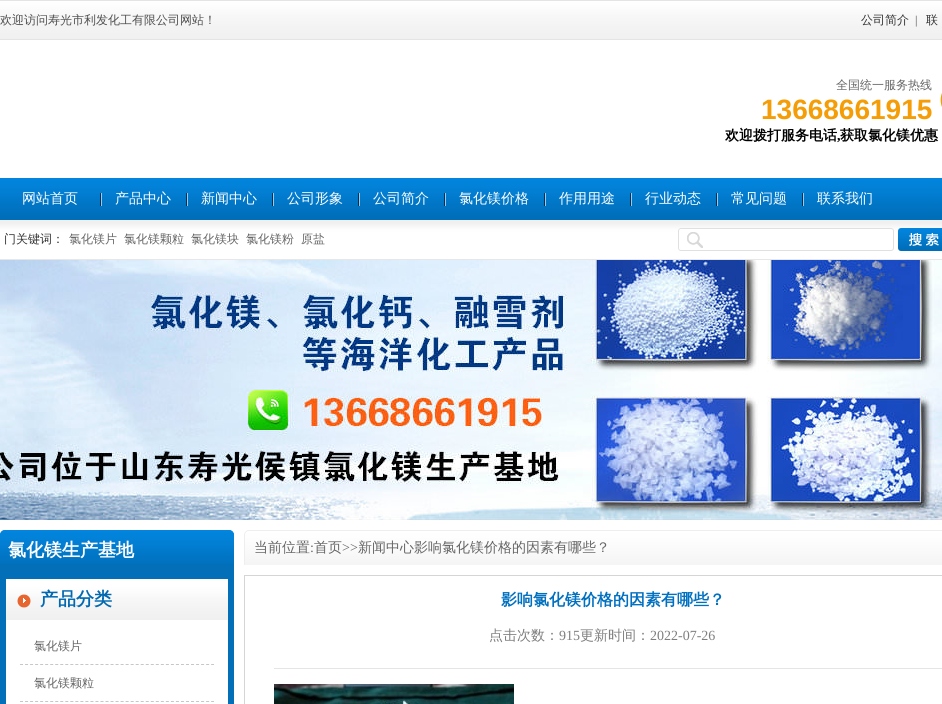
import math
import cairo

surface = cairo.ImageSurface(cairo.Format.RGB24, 942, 704)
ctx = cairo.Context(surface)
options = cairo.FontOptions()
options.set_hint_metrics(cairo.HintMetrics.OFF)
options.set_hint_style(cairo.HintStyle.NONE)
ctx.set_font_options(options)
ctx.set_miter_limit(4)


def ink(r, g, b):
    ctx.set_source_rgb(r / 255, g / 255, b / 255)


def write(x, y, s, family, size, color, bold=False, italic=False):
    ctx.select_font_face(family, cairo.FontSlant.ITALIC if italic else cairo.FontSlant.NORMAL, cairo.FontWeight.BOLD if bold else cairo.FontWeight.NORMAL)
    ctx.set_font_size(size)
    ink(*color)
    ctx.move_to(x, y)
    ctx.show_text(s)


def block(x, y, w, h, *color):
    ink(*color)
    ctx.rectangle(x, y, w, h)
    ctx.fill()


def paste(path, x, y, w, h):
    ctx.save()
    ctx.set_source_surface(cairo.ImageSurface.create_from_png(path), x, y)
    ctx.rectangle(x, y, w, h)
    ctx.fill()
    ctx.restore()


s1 = dict(family="WenQuanYi Zen Hei Medium", size=12, color=(79, 79, 79))
s2 = dict(family="WenQuanYi Zen Hei Medium", size=12, color=(51, 51, 51))
s3 = dict(family="Liberation Serif", size=12, color=(79, 79, 79))
s4 = dict(family="WenQuanYi Zen Hei Medium", size=12, color=(102, 102, 102))
s5 = dict(family="Liberation Sans", size=28, color=(244, 157, 6), bold=True)
s6 = dict(family="WenQuanYi Zen Hei", size=14, color=(0, 0, 0), bold=True)
s7 = dict(family="Liberation Serif", size=14, color=(0, 0, 0), bold=True)
s8 = dict(family="WenQuanYi Zen Hei Medium", size=14, color=(255, 255, 255))
s9 = dict(family="WenQuanYi Zen Hei", size=18, color=(255, 255, 255), bold=True)
s10 = dict(family="WenQuanYi Zen Hei", size=18, color=(2, 105, 177), bold=True)
s11 = dict(family="WenQuanYi Zen Hei Medium", size=14, color=(102, 102, 102))
s12 = dict(family="Liberation Serif", size=14, color=(102, 102, 102))
s13 = dict(family="WenQuanYi Zen Hei", size=16, color=(0, 112, 192), bold=True)
s14 = dict(family="WenQuanYi Zen Hei Medium", size=14, color=(126, 126, 126))
s15 = dict(family="Liberation Serif", size=14, color=(126, 126, 126))

ink(255, 255, 255)
ctx.paint()
paste("pic1.png", 0, 0, 942, 40)
write(0, 24, "欢迎访问寿光市利发化工有限公司网站！", **s1)
write(861, 24, "公司简介", **s2)
write(915, 24, "|", **s3)
write(926, 24, "联", **s2)
paste("pic2.png", 940, 93, 2, 14)
write(836, 89, "全国统一服务热线", **s4)
write(761, 119, "13668661915", **s5)
write(725, 140, "欢迎拨打服务电话", **s6)
write(837, 140, ",", **s7)
write(840, 140, "获取氯化镁优惠", **s6)
paste("pic3.png", 0, 178, 942, 42)
write(22, 203, "网站首页", **s8)
paste("pic4.png", 100, 193, 2, 13)
write(115, 203, "产品中心", **s8)
paste("pic4.png", 186, 193, 2, 13)
write(201, 203, "新闻中心", **s8)
paste("pic4.png", 272, 193, 2, 13)
write(287, 203, "公司形象", **s8)
paste("pic4.png", 358, 193, 2, 13)
write(373, 203, "公司简介", **s8)
paste("pic4.png", 444, 193, 2, 13)
write(459, 203, "氯化镁价格", **s8)
paste("pic4.png", 544, 193, 2, 13)
write(559, 203, "作用用途", **s8)
paste("pic4.png", 630, 193, 2, 13)
write(645, 203, "行业动态", **s8)
paste("pic4.png", 716, 193, 2, 13)
write(731, 203, "常见问题", **s8)
paste("pic4.png", 802, 193, 2, 13)
write(817, 203, "联系我们", **s8)
paste("pic5.png", 0, 220, 942, 40)
write(4, 243, "门关键词：", **s2)
write(69, 243, "氯化镁片", **s4)
write(124, 243, "氯化镁颗粒", **s4)
write(191, 243, "氯化镁块", **s4)
write(246, 243, "氯化镁粉", **s4)
write(301, 243, "原盐", **s4)
paste("pic6.png", 678, 228, 216, 23)
paste("pic7.png", 898, 228, 44, 23)
paste("pic8.png", 0, 260, 942, 260)
block(0, 564, 234, 140, 3, 111, 185)
paste("pic9.png", 0, 530, 234, 34)
write(8, 556, "氯化镁生产基地", **s9)
paste("pic10.png", 6, 579, 222, 125)
write(40, 605, "产品分类", **s10)
ctx.new_path()
ctx.move_to(20, 664.5)
ctx.line_to(214, 664.5)
ink(199, 199, 199)
ctx.set_line_width(1)
ctx.set_dash([3, 2.03])
ctx.stroke()
write(34, 650, "氯化镁片", **s4)
ctx.new_path()
ctx.move_to(20, 701.5)
ctx.line_to(214, 701.5)
ink(199, 199, 199)
ctx.stroke()
write(34, 687, "氯化镁颗粒", **s4)
paste("pic11.png", 244, 530, 698, 35)
write(254, 552, "当前位置", **s11)
write(310, 552, ":", **s12)
write(314, 552, "首页", **s11)
write(342, 552, ">>", **s12)
write(358, 552, "新闻中心影响氯化镁价格的因素有哪些？", **s11)
ctx.rectangle(244.5, 575.5, 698, 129)
ink(213, 213, 213)
ctx.set_dash([])
ctx.stroke()
write(501, 605, "影响氯化镁价格的因素有哪些？", **s13)
block(274, 668, 668, 1, 229, 229, 229)
write(489, 640, "点击次数：", **s14)
write(559, 640, "915", **s15)
write(580, 640, "更新时间：", **s14)
write(650, 640, "2022-07-26", **s15)
paste("pic12.png", 274, 684, 240, 20)
surface.write_to_png("screenshot.png")
